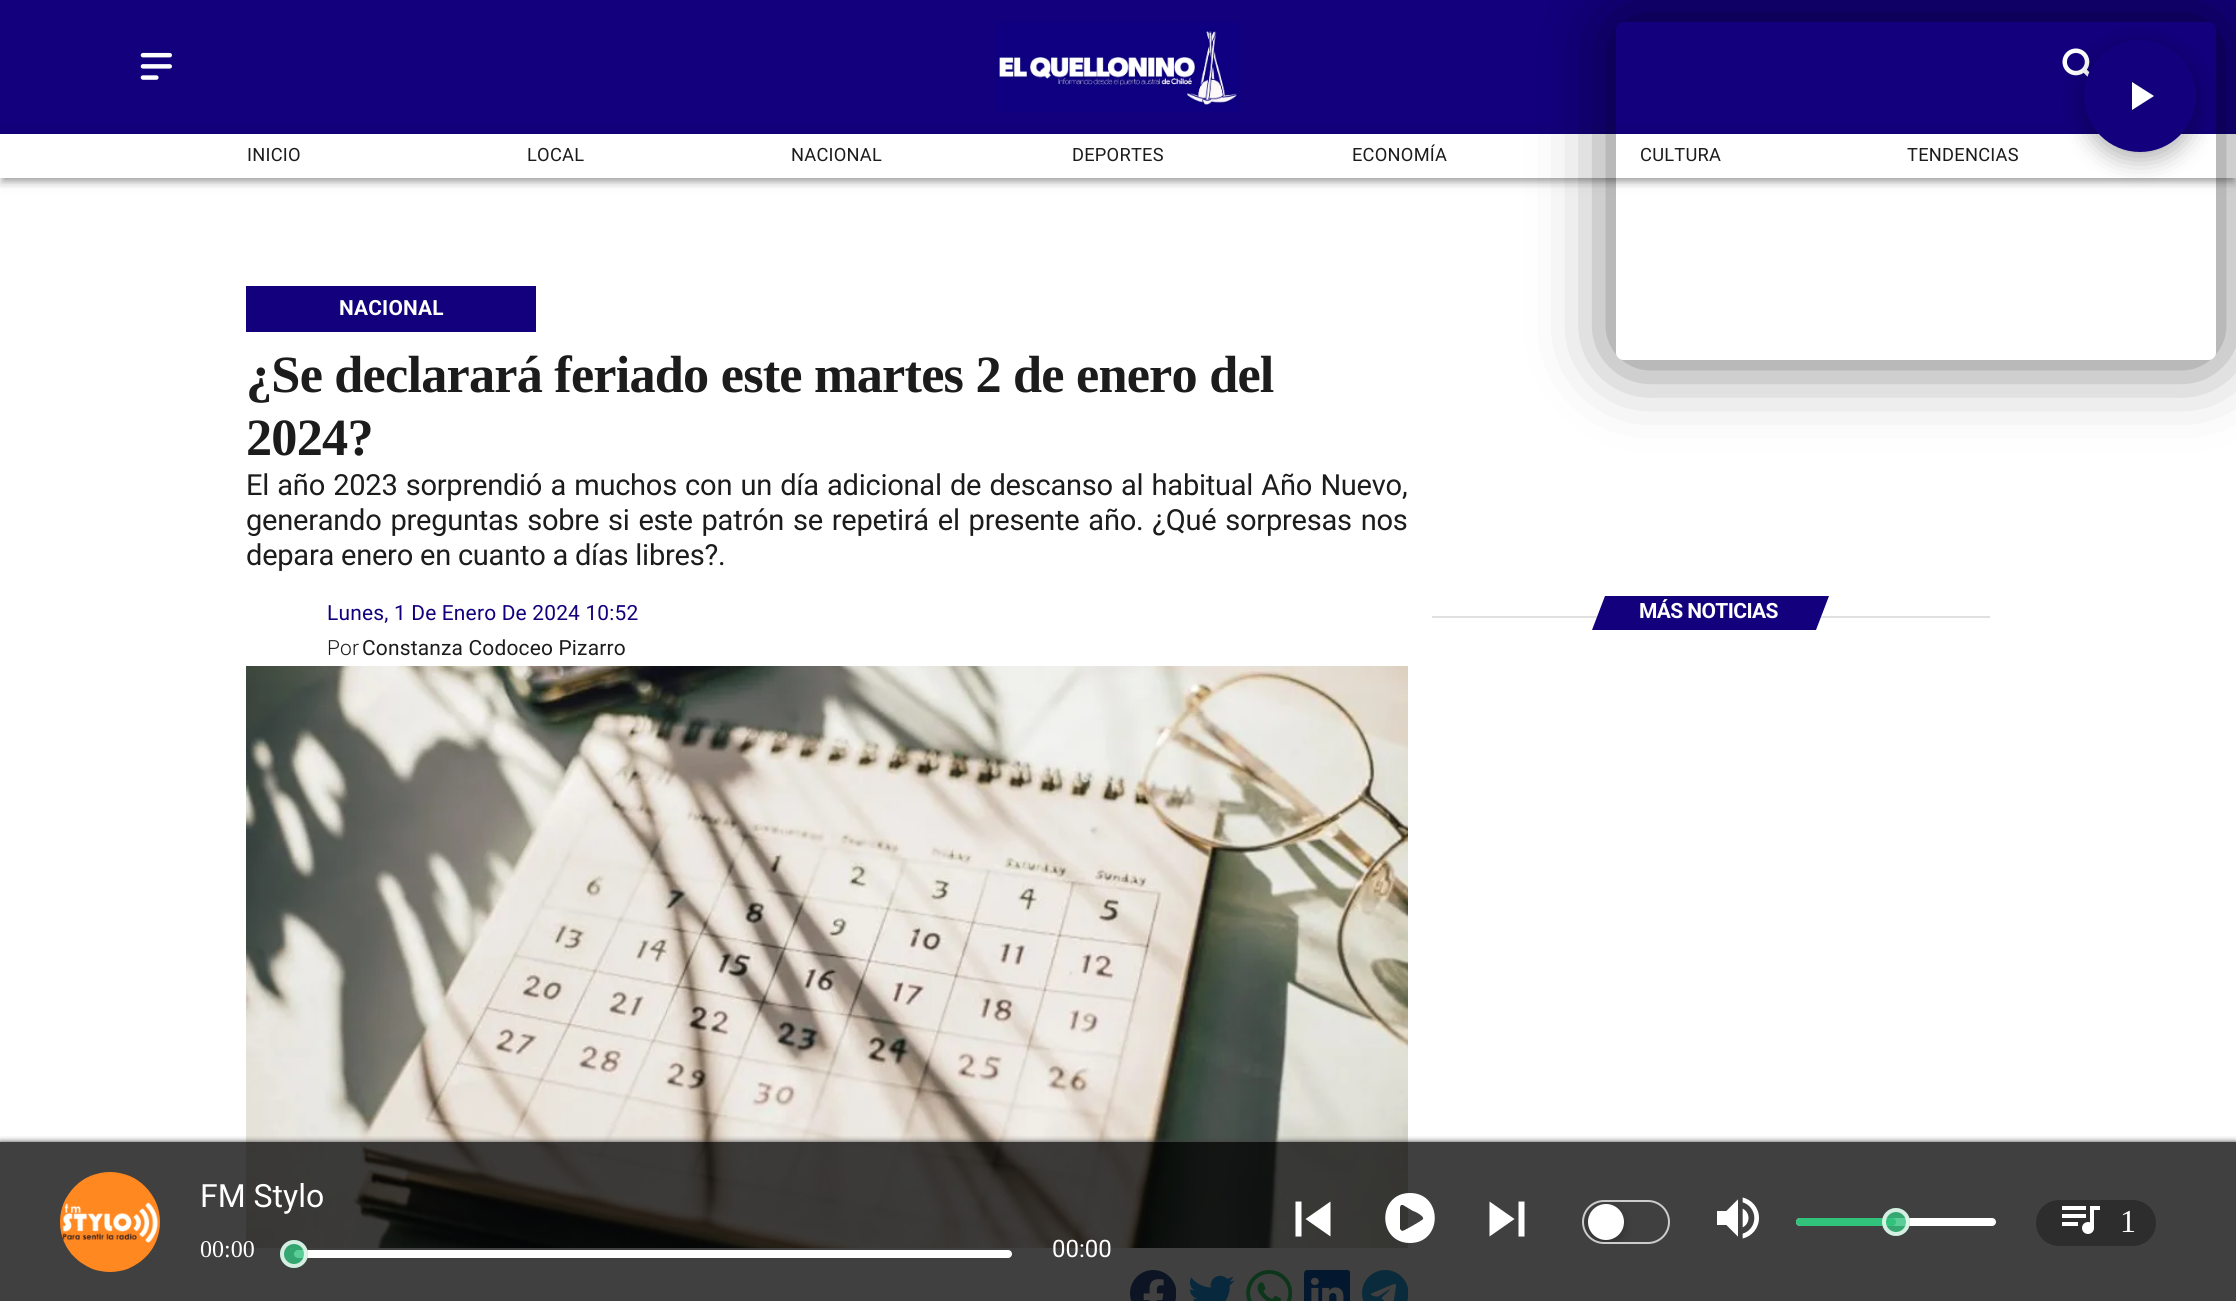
import math
import cairo

surface = cairo.ImageSurface(cairo.Format.RGB24, 2236, 1301)
ctx = cairo.Context(surface)
options = cairo.FontOptions()
options.set_hint_metrics(cairo.HintMetrics.OFF)
options.set_hint_style(cairo.HintStyle.NONE)
ctx.set_font_options(options)
ctx.set_miter_limit(4)


def ink(r, g, b):
    ctx.set_source_rgb(r / 255, g / 255, b / 255)


def write(x, y, s, family, size, color, bold=False, italic=False):
    ctx.select_font_face(family, cairo.FontSlant.ITALIC if italic else cairo.FontSlant.NORMAL, cairo.FontWeight.BOLD if bold else cairo.FontWeight.NORMAL)
    ctx.set_font_size(size)
    ink(*color)
    ctx.move_to(x, y)
    ctx.show_text(s)


def write_spaced(x, y, s, letter, word):
    ctx.move_to(x, y)
    for ch in s:
        ctx.show_text(ch)
        ctx.rel_move_to(letter + word * (ch == ' '), 0)


def block(x, y, w, h, *color):
    ink(*color)
    ctx.rectangle(x, y, w, h)
    ctx.fill()


def round_path(x, y, w, h, r):
    ctx.new_sub_path()
    for i, (u, v) in enumerate([(x + w - r, y + h - r), (x + r, y + h - r), (x + r, y + r), (x + w - r, y + r)]):
        ctx.arc(u, v, r, i * math.pi / 2, (i + 1) * math.pi / 2)
    ctx.close_path()


def blur_box(x, y, w, h, r, blur, alpha):
    ctx.push_group_with_content(cairo.Content.ALPHA)
    ctx.set_operator(cairo.Operator.SOURCE)
    for i in range(15, -16, -2):
        e = blur * i / 6
        if min(w, h) + 2 * e > 0:
            ctx.set_source_rgba(0, 0, 0, alpha * math.erfc((i - 1) / 8.5) / 2)
            round_path(x - e, y - e, w + 2 * e, h + 2 * e, max(0, min(r + e + blur * .6, min(w, h) / 2 + e)))
            ctx.fill()
    ctx.mask(ctx.pop_group())


def paste(path, x, y, w, h):
    ctx.save()
    ctx.set_source_surface(cairo.ImageSurface.create_from_png(path), x, y)
    ctx.rectangle(x, y, w, h)
    ctx.fill()
    ctx.restore()


s1 = dict(family="Roboto", size=32, color=(255, 255, 255))
s2 = dict(family="Liberation Serif", size=24, color=(255, 255, 255))
s3 = dict(family="Roboto", size=24, color=(255, 255, 255))
s4 = dict(family="Liberation Serif", size=32, color=(255, 255, 255))

ink(255, 255, 255)
ctx.paint()
block(0, 0, 2236, 134, 18, 0, 124)
paste("pic3.png", 2062, 48, 28, 29)
ink(0, 0, 0)
blur_box(2084, 48, 112, 112, 56, 12, 0.3)
ctx.save()
ctx.set_fill_rule(cairo.FillRule.EVEN_ODD)
ctx.new_path()
ctx.move_to(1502, 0)
ctx.line_to(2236, 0)
ctx.line_to(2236, 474)
ctx.line_to(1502, 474)
ctx.close_path()
ctx.move_to(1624, 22)
ctx.line_to(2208, 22)
ctx.curve_to(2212.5, 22, 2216, 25.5, 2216, 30)
ctx.line_to(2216, 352)
ctx.curve_to(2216, 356.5, 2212.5, 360, 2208, 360)
ctx.line_to(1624, 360)
ctx.curve_to(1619.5, 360, 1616, 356.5, 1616, 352)
ctx.line_to(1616, 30)
ctx.curve_to(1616, 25.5, 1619.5, 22, 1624, 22)
ctx.close_path()
ctx.clip()
blur_box(1626, 32, 580, 318, 0, 41, 0.75)
ctx.restore()
paste("pic2.png", 996, 22, 244, 90)
ctx.save()
ctx.set_fill_rule(cairo.FillRule.EVEN_ODD)
ctx.new_path()
ctx.move_to(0, 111)
ctx.line_to(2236, 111)
ctx.line_to(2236, 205)
ctx.line_to(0, 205)
ctx.close_path()
ctx.move_to(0, 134)
ctx.line_to(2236, 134)
ctx.line_to(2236, 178)
ctx.line_to(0, 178)
ctx.close_path()
ctx.clip()
blur_box(0, 136, 2236, 44, 0, 8, 0.12)
ctx.restore()
ctx.save()
ctx.rectangle(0, 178, 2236, 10)
ctx.clip()
blur_box(0, 140, 2236, 44, 0, 4, 0.14)
ctx.restore()
ctx.save()
ctx.rectangle(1, 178, 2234, 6)
ctx.clip()
blur_box(4, 144, 2228, 36, 0, 3, 0.2)
ctx.restore()
ink(18, 0, 124)
ctx.arc(2140, 96, 56, 0, 2 * math.pi)
ctx.fill()
ink(255, 255, 255)
ctx.new_path()
ctx.move_to(2132, 82)
ctx.line_to(2132, 110)
ctx.line_to(2154, 96)
ctx.close_path()
ctx.fill()
paste("pic1.png", 140, 52, 32, 28)
ctx.select_font_face("Roboto")
ctx.set_font_size(18.25)
ink(28, 28, 28)
write_spaced(247, 161, "INICIO", 0.25, 0)
write_spaced(527, 161, "LOCAL", 0.25, 0)
write_spaced(791, 161, "NACIONAL", 0.25, 0)
write_spaced(1072, 161, "DEPORTES", 0.25, 0)
write_spaced(1352, 161, "ECONOMÍA", 0.25, 0)
write_spaced(1640, 161, "CULTURA", 0.25, 0)
write_spaced(1907, 161, "TENDENCIAS", 0.25, 0)
block(246, 286, 290, 46, 18, 0, 124)
ctx.select_font_face("Roboto", cairo.FontSlant.NORMAL, cairo.FontWeight.BOLD)
ctx.set_font_size(20.9)
ink(255, 255, 255)
write_spaced(339, 315, "NACIONAL", 0.2, 0)
ctx.select_font_face("Liberation Serif", cairo.FontSlant.NORMAL, cairo.FontWeight.BOLD)
ctx.set_font_size(52.3)
ink(28, 28, 28)
write_spaced(246, 392, "¿Se declarará feriado este martes 2 de enero del", -0.8, 0)
write_spaced(246, 455, "2024?", -0.8, 0)
ctx.select_font_face("Roboto")
ctx.set_font_size(29.05)
write_spaced(246, 495, "El año 2023 sorprendió a muchos con un día adicional de descanso al habitual Año Nuevo,", -0.25, 1.25)
write_spaced(246, 530, "generando preguntas sobre si este patrón se repetirá el presente año. ¿Qué sorpresas nos", -0.25, 1.9)
write_spaced(246, 565, "depara enero en cuanto a días libres?.", -0.25, 0)
ctx.set_font_size(20.9)
ink(18, 0, 124)
write_spaced(327, 620, "Lunes, 1 De Enero De 2024 10:52", 0.2, 0)
ctx.select_font_face("Roboto Light")
ink(28, 28, 28)
write_spaced(327, 655, "Por", 0.2, 0)
ctx.select_font_face("Roboto")
write_spaced(362, 655, "Constanza Codoceo Pizarro", 0.2, 0)
paste("pic4.png", 246, 666, 1162, 582)
paste("pic5.png", 1130, 1270, 46, 31)
paste("pic6.png", 1189, 1275, 45, 26)
paste("pic7.png", 1246, 1270, 46, 31)
paste("pic8.png", 1304, 1270, 46, 31)
paste("pic9.png", 1362, 1270, 46, 31)
block(1432, 616, 558, 2, 224, 224, 224)
ink(18, 0, 124)
ctx.new_path()
ctx.move_to(1605, 596)
ctx.line_to(1829, 596)
ctx.line_to(1816, 630)
ctx.line_to(1592, 630)
ctx.close_path()
ctx.fill()
ctx.select_font_face("Roboto", cairo.FontSlant.NORMAL, cairo.FontWeight.BOLD)
ctx.set_font_size(21)
ink(255, 255, 255)
write_spaced(1639, 618, "MÁS NOTICIAS", -0.6, 0)
ctx.save()
ctx.rectangle(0, 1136, 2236, 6)
ctx.clip()
ink(64, 63, 63)
blur_box(0, 1142, 2236, 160, 0, 3, 1)
ctx.restore()
ctx.set_source_rgba(0, 0, 0, 0.75)
ctx.rectangle(0, 1142, 2236, 159)
ctx.fill()
paste("pic10.png", 60, 1172, 100, 100)
write(200, 1207, "FM Stylo", **s1)
write(200, 1257, "00:00", **s2)
round_path(294, 1250, 718, 8, 4)
ctx.fill()
ctx.set_source_rgba(0.192, 0.761, 0.486, 0.8)
ctx.arc(294, 1254, 14, 0, 2 * math.pi)
ctx.fill()
ctx.arc(294, 1254, 12, 0, 2 * math.pi)
ctx.set_source_rgba(1, 1, 1, 0.8)
ctx.set_line_width(4)
ctx.stroke()
write(1052, 1257, "00:00", **s3)
ctx.new_path()
ctx.move_to(1295.5, 1201.5)
ctx.line_to(1301.5, 1201.5)
ctx.line_to(1301.5, 1236.5)
ctx.line_to(1295.5, 1236.5)
ctx.close_path()
ctx.move_to(1305.5, 1219)
ctx.line_to(1330.5, 1236.5)
ctx.line_to(1330.5, 1201.5)
ctx.close_path()
ctx.fill()
ctx.new_path()
ctx.move_to(1410, 1193)
ctx.curve_to(1377, 1193, 1377, 1243, 1410, 1243)
ctx.curve_to(1443, 1243, 1443, 1193, 1410, 1193)
ctx.close_path()
ctx.move_to(1422, 1220)
ctx.curve_to(1419, 1222, 1404, 1231, 1402, 1231)
ctx.line_to(1400, 1229)
ctx.line_to(1400, 1207)
ctx.line_to(1401, 1205)
ctx.line_to(1403, 1205)
ctx.line_to(1413, 1211)
ctx.curve_to(1414, 1211, 1427, 1217, 1422, 1220)
ctx.close_path()
ctx.fill()
ctx.new_path()
ctx.move_to(1489.5, 1236.5)
ctx.line_to(1514.5, 1219)
ctx.line_to(1489.5, 1201.5)
ctx.close_path()
ctx.move_to(1518.5, 1201.5)
ctx.line_to(1518.5, 1236.5)
ctx.line_to(1524.5, 1236.5)
ctx.line_to(1524.5, 1201.5)
ctx.close_path()
ctx.fill()
round_path(1583, 1201, 86, 42, 21)
ink(204, 204, 204)
ctx.set_line_width(2)
ctx.stroke()
ctx.save()
round_path(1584, 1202, 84, 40, 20)
ctx.clip()
ink(0, 0, 0)
blur_box(1588, 1208, 36, 36, 18, 5, 0.26)
ctx.restore()
ink(255, 255, 255)
ctx.arc(1606, 1222, 18, 0, 2 * math.pi)
ctx.fill()
paste("pic11.png", 1717, 1197, 42, 42)
round_path(1796, 1218, 200, 8, 4)
ctx.fill()
ink(49, 194, 124)
round_path(1796, 1218, 100, 8, 4)
ctx.fill()
ctx.set_source_rgba(0.192, 0.761, 0.486, 0.8)
ctx.arc(1896, 1222, 14, 0, 2 * math.pi)
ctx.fill()
ctx.arc(1896, 1222, 12, 0, 2 * math.pi)
ctx.set_source_rgba(1, 1, 1, 0.8)
ctx.set_line_width(4)
ctx.stroke()
ink(45, 45, 45)
round_path(2036, 1200, 120, 46, 23)
ctx.fill()
paste("pic12.png", 2062, 1206, 38, 28)
write(2120, 1232, "1", **s4)
surface.write_to_png("screenshot.png")
